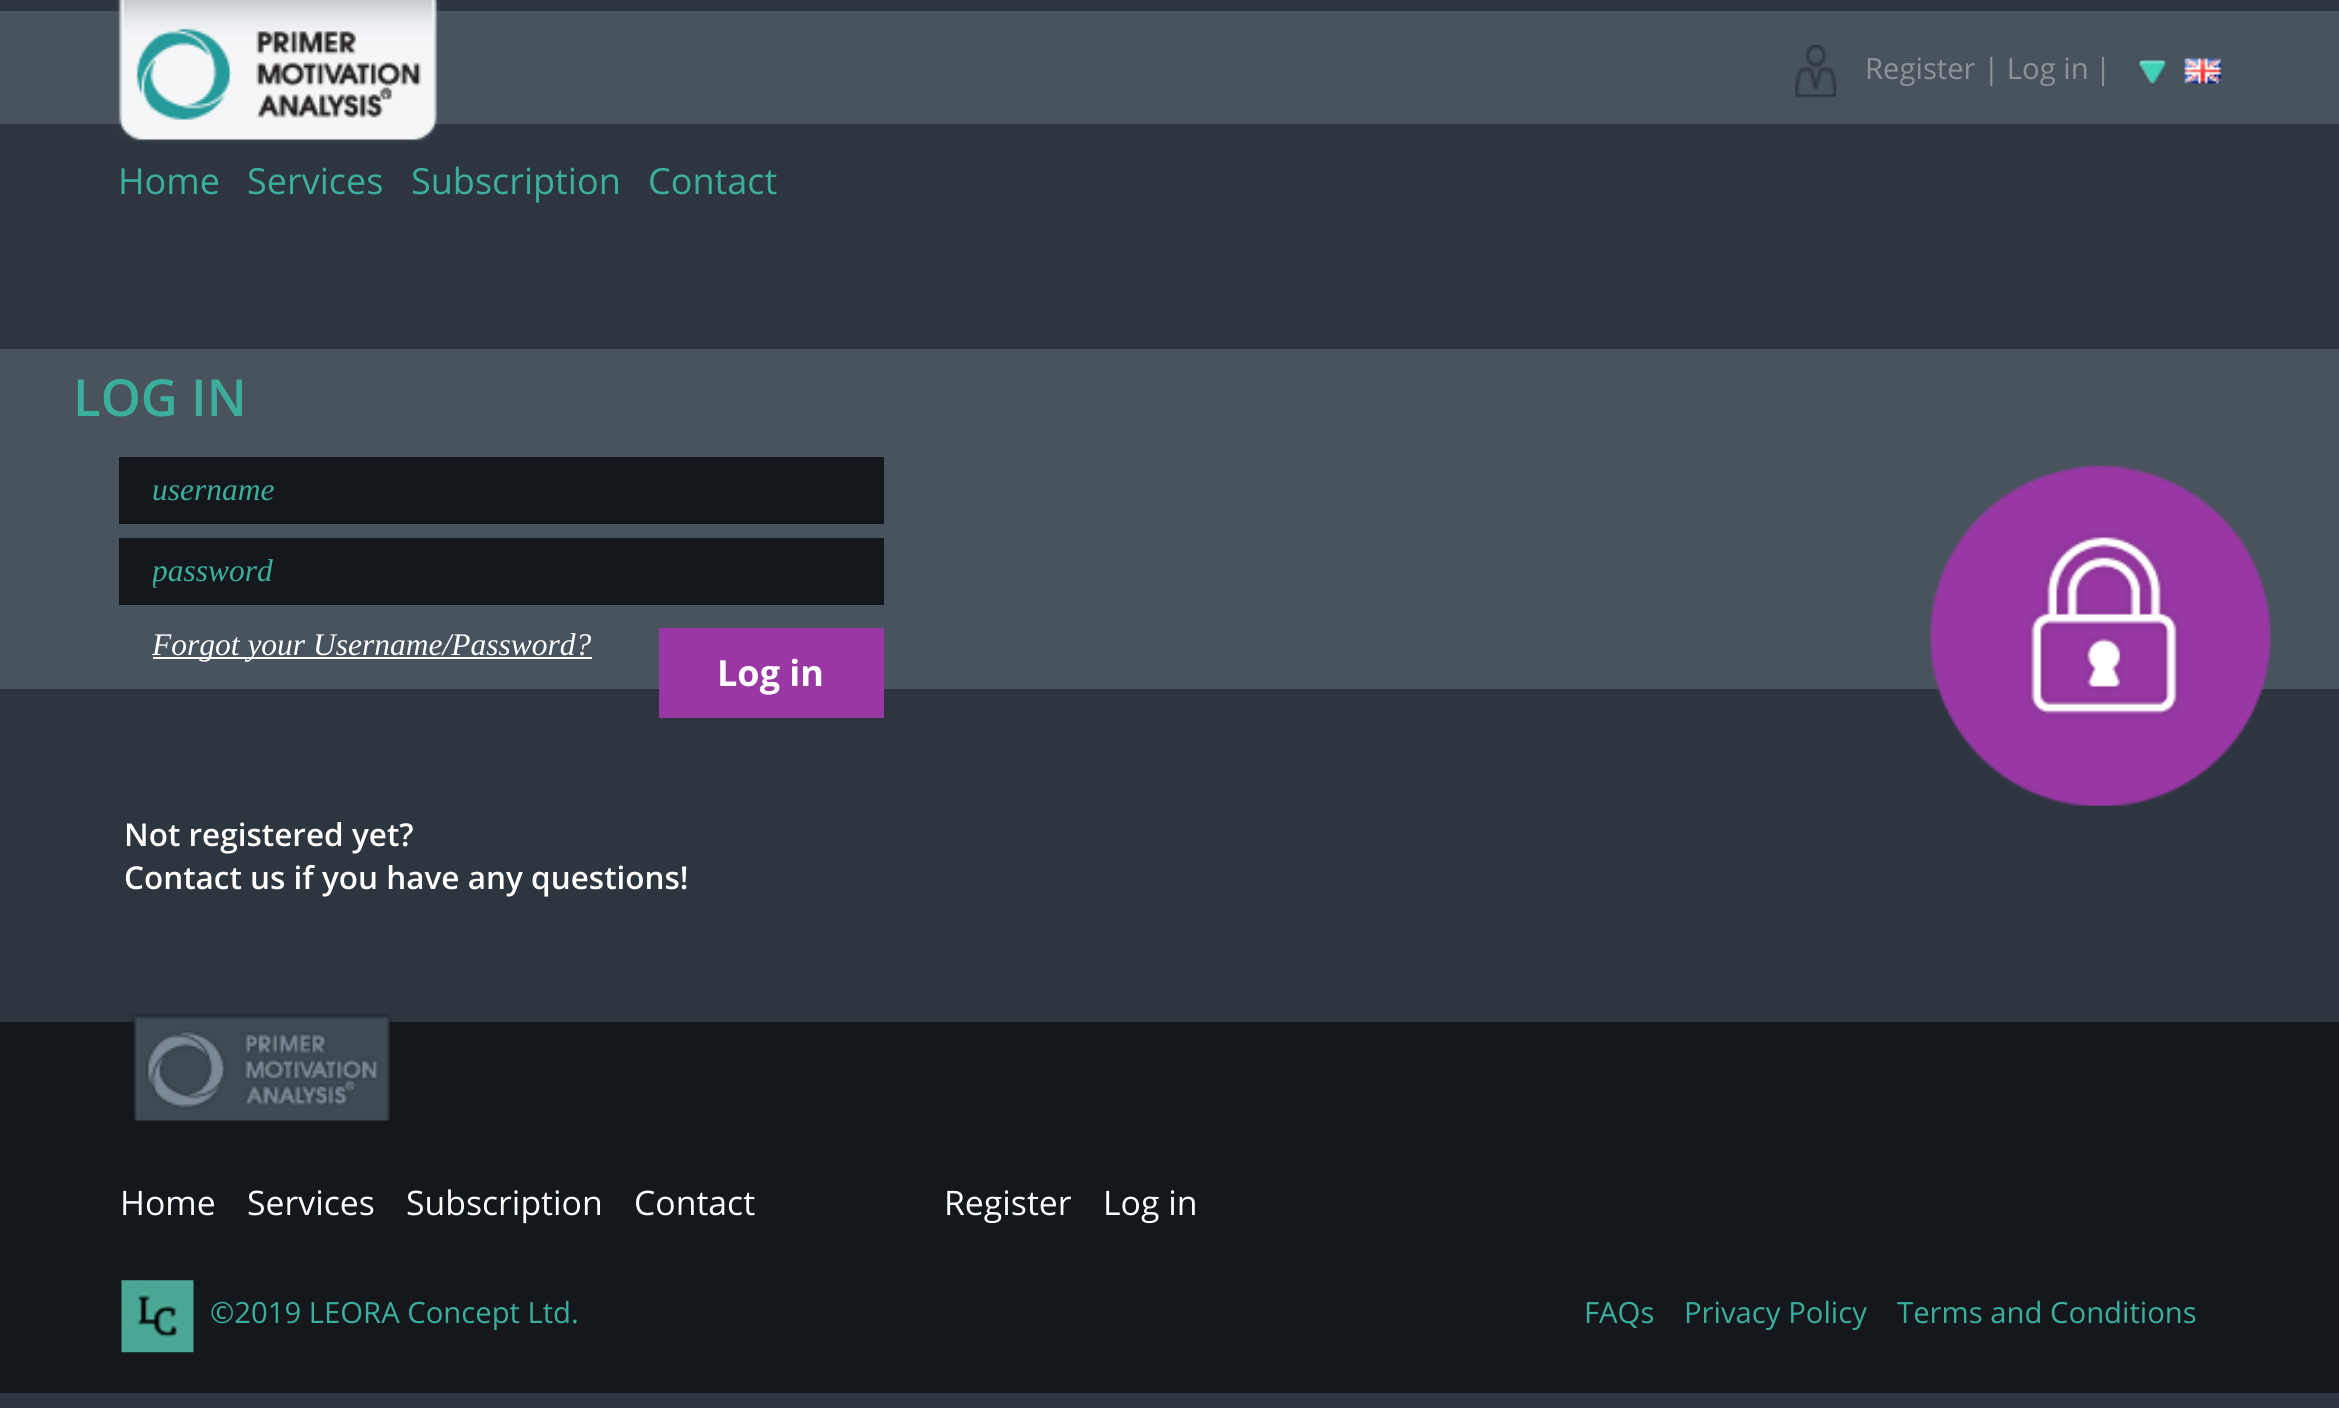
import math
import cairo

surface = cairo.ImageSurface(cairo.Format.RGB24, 2339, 1408)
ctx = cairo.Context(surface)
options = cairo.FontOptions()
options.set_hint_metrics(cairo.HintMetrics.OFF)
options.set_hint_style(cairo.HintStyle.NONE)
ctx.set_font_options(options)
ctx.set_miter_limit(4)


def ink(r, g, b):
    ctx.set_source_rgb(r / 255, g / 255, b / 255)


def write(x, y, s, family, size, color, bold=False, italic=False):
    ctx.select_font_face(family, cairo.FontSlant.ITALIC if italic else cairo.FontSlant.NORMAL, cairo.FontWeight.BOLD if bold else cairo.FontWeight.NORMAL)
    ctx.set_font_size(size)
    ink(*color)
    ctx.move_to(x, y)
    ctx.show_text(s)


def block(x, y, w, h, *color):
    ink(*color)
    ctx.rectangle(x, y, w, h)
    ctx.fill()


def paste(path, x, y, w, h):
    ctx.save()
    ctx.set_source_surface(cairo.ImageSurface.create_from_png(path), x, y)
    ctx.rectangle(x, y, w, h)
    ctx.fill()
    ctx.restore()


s1 = dict(family="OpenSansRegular", size=29.25, color=(141, 146, 150))
s2 = dict(family="OpenSansRegular", size=36, color=(59, 175, 156))
s3 = dict(family="Open Sans SemiBold", size=51, color=(59, 175, 156))
s4 = dict(family="Liberation Serif", size=31.5, color=(59, 175, 156), italic=True)
s5 = dict(family="Liberation Serif", size=31.5, color=(255, 255, 255), italic=True)
s6 = dict(family="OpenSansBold", size=36, color=(255, 255, 255), bold=True)
s7 = dict(family="Open Sans SemiBold", size=31.5, color=(255, 255, 255))
s8 = dict(family="OpenSansRegular", size=33.75, color=(255, 255, 255))
s9 = dict(family="OpenSansRegular", size=29.25, color=(59, 175, 156))

ink(45, 54, 63)
ctx.paint()
block(0, 11, 2339, 113, 73, 83, 93)
paste("pic1.png", 116, 0, 324, 143)
paste("pic2.png", 1795, 45, 41, 53)
write(1865, 79, "Register | Log in", **s1)
write(2095, 79, "|", **s1)
paste("pic3.png", 2137, 58, 32, 28)
paste("pic4.png", 2184, 58, 37, 26)
write(118, 194, "Home", **s2)
write(247, 194, "Services", **s2)
write(411, 194, "Subscription", **s2)
write(648, 194, "Contact", **s2)
block(0, 349, 2339, 340, 73, 83, 93)
write(73, 416, "LOG IN", **s3)
block(119, 457, 765, 67, 20, 23, 27)
write(152, 500, "username", **s4)
block(119, 538, 765, 67, 20, 23, 27)
ctx.save()
ctx.rectangle(153, 554, 698, 36)
ctx.clip()
write(152, 581, "password", **s4)
ctx.restore()
block(153, 657, 439, 2, 255, 255, 255)
write(152, 655, "Forgot your Username/Password?", **s5)
block(659, 628, 225, 90, 153, 56, 165)
write(717, 686, "Log in", **s6)
paste("pic5.png", 1930, 465, 341, 342)
write(124, 846, "Not registered yet?", **s7)
write(124, 889, "Contact us if you have any questions!", **s7)
block(0, 1022, 2339, 371, 20, 23, 28)
paste("pic6.png", 129, 1013, 264, 108)
write(120, 1215, "Home", **s8)
write(247, 1215, "Services", **s8)
write(406, 1215, "Subscription", **s8)
write(634, 1215, "Contact", **s8)
write(944, 1215, "Register", **s8)
write(1103, 1215, "Log in", **s8)
paste("pic7.png", 121, 1280, 73, 73)
write(210, 1323, "©2019 LEORA Concept Ltd.", **s9)
write(1584, 1323, "FAQs", **s9)
write(1684, 1323, "Privacy Policy", **s9)
write(1897, 1323, "Terms and Conditions", **s9)
surface.write_to_png("screenshot.png")
